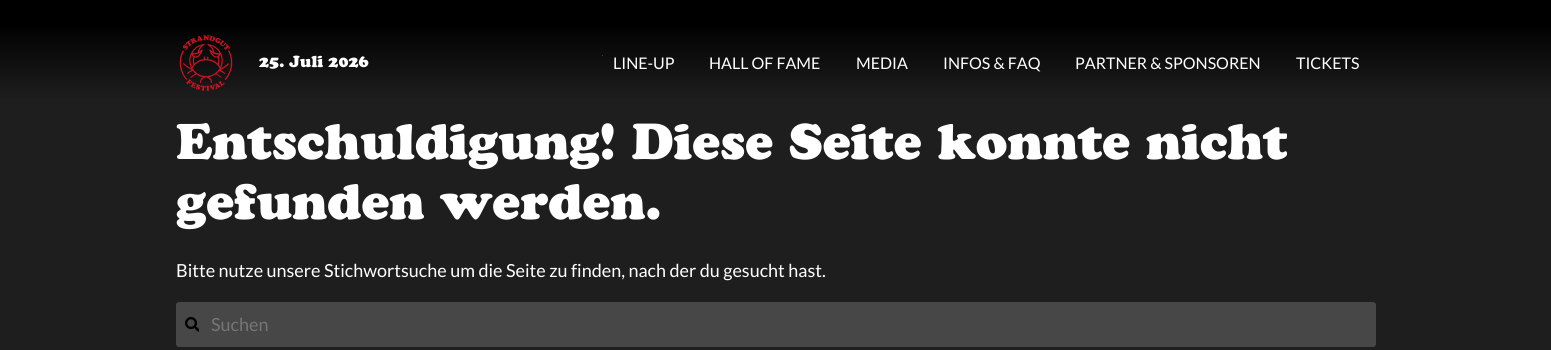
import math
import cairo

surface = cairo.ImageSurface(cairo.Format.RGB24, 1551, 350)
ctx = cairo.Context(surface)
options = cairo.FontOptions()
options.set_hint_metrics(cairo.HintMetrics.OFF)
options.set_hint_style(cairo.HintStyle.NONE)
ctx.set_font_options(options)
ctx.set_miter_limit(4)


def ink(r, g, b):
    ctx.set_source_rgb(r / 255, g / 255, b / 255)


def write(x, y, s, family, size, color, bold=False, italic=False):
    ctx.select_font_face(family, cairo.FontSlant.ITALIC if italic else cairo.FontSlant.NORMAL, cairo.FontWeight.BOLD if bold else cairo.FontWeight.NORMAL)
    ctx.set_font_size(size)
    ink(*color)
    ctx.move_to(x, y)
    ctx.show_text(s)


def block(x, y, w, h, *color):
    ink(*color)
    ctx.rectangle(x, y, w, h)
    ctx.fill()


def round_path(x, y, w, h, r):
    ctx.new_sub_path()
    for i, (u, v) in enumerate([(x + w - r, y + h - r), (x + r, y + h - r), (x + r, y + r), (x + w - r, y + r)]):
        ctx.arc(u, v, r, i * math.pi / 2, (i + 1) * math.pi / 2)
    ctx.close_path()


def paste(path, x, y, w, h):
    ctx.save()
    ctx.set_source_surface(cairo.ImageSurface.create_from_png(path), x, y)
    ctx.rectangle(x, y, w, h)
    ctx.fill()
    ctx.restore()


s1 = dict(family="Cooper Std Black", size=16, color=(255, 255, 255))
s2 = dict(family="Lato", size=16, color=(255, 255, 255))
s3 = dict(family="Cooper Std Black", size=50, color=(255, 255, 255))
s4 = dict(family="Lato", size=18, color=(255, 255, 255))
s5 = dict(family="Lato", size=18, color=(117, 117, 117))

ink(0, 0, 0)
ctx.paint()
block(0, 101, 1551, 249, 30, 30, 30)
gradient = cairo.LinearGradient(776, 21, 776, 101)
gradient.add_color_stop_rgba(0, 0, 0, 0, 1)
gradient.add_color_stop_rgba(1, 0.118, 0.118, 0.118, 1)
ctx.set_source(gradient)
ctx.rectangle(0, 28, 1551, 73)
ctx.fill()
paste("pic1.png", 179, 35, 54, 56)
write(259, 67, "25. Juli 2026", **s1)
block(602, 55, 1, 1, 61, 61, 61)
write(613, 69, "LINE-UP", **s2)
write(709, 69, "HALL OF FAME", **s2)
write(856, 69, "MEDIA", **s2)
write(943, 69, "INFOS & FAQ", **s2)
write(1075, 69, "PARTNER & SPONSOREN", **s2)
write(1296, 69, "TICKETS", **s2)
write(176, 159, "Entschuldigung! Diese Seite konnte nicht", **s3)
write(176, 219, "gefunden werden.", **s3)
write(176, 277, "Bitte nutze unsere Stichwortsuche um die Seite zu finden, nach der du gesucht hast.", **s4)
ink(71, 71, 72)
round_path(176, 302, 1200, 45, 3)
ctx.fill()
paste("pic2.png", 185, 317, 14, 15)
write(211, 331, "Suchen", **s5)
surface.write_to_png("screenshot.png")
